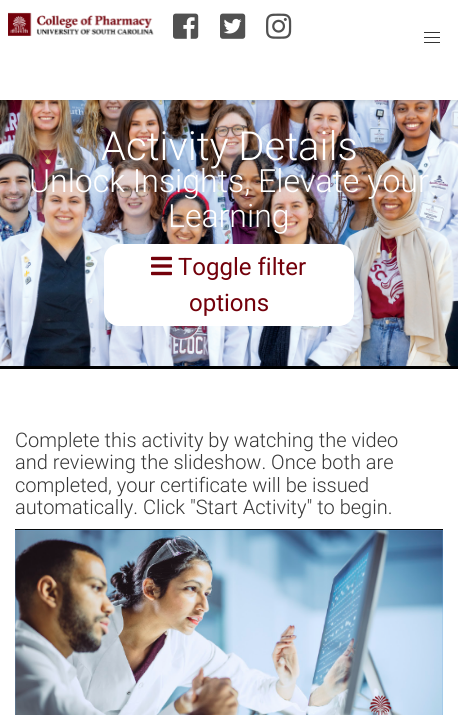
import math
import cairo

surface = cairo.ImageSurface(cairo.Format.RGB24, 458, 715)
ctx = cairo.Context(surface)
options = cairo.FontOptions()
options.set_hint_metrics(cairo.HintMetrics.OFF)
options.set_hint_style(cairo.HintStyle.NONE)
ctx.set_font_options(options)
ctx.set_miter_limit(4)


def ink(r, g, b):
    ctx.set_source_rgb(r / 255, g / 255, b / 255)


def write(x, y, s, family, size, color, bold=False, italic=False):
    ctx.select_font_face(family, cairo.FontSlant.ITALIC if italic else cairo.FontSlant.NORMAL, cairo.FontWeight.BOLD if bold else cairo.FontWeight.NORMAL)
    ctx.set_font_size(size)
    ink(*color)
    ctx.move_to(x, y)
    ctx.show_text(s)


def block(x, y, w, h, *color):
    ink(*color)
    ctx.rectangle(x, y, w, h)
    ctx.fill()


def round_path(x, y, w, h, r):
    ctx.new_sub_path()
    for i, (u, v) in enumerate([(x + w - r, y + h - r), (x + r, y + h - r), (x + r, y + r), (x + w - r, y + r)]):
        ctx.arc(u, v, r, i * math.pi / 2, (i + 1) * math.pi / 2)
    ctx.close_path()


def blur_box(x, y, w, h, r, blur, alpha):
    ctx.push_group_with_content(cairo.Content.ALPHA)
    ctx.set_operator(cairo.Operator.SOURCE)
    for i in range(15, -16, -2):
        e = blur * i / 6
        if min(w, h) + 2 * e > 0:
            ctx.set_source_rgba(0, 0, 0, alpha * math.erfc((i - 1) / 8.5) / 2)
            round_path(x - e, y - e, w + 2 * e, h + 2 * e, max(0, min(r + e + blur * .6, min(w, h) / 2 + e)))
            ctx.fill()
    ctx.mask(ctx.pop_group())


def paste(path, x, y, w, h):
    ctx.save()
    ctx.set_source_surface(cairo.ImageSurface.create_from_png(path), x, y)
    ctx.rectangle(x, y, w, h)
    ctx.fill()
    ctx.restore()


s1 = dict(family="Roboto Light", size=40, color=(255, 255, 255))
s2 = dict(family="Roboto Light", size=32, color=(255, 255, 255))
s3 = dict(family="Roboto", size=24, color=(115, 0, 10))
s4 = dict(family="Roboto Light", size=20, color=(54, 54, 54))

ink(255, 255, 255)
ctx.paint()
paste("pic5.png", 0, 100, 458, 266)
ink(10, 10, 10)
blur_box(0, 2, 458, 100, 0, 1.5, 0.1)
block(0, 0, 458, 100, 255, 255, 255)
paste("pic1.png", 8, 12, 146, 24)
paste("pic2.png", 173, 13, 26, 26)
paste("pic3.png", 220, 13, 26, 26)
paste("pic4.png", 266, 13, 26, 26)
block(424, 32, 16, 1, 51, 51, 51)
block(424, 37, 16, 1, 51, 51, 51)
block(424, 42, 16, 1, 51, 51, 51)
block(0, 366, 458, 3, 0, 0, 0)
write(101, 160, "Activity Details", **s1)
write(29, 192, "Unlock Insights, Elevate your", **s2)
write(168, 227, "Learning", **s2)
round_path(104, 244, 250, 82, 15)
ctx.fill()
paste("pic6.png", 151, 256, 21, 20)
write(178, 275, "Toggle filter", **s3)
write(189, 311, "options", **s3)
write(15, 447, "Complete this activity by watching the video", **s4)
write(15, 469, "and reviewing the slideshow. Once both are", **s4)
write(15, 492, "completed, your certificate will be issued", **s4)
write(15, 514, "automatically. Click \"Start Activity\" to begin.", **s4)
paste("pic7.png", 15, 529, 428, 186)
surface.write_to_png("screenshot.png")
